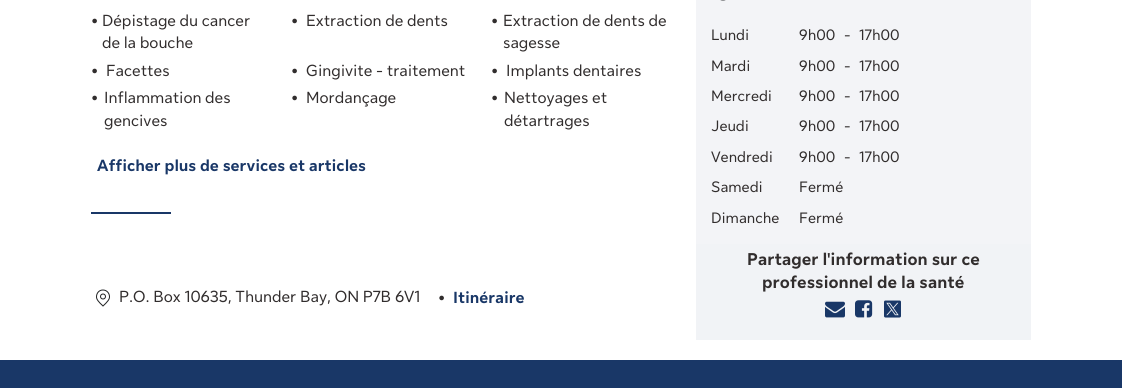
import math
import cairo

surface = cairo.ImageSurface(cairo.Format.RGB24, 1122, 388)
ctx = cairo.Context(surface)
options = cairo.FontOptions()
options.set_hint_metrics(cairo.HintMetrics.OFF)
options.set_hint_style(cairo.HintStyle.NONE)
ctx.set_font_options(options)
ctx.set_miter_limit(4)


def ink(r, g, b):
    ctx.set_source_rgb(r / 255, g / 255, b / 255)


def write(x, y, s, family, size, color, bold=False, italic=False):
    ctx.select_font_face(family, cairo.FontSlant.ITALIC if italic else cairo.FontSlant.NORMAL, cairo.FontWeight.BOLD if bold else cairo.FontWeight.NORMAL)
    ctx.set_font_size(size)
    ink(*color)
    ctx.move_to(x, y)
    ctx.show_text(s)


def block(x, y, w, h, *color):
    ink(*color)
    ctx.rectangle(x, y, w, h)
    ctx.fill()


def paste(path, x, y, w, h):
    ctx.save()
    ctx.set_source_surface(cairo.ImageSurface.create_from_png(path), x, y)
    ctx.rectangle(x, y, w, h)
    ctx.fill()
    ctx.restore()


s1 = dict(family="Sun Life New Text", size=22, color=(49, 45, 45), bold=True)
s2 = dict(family="Sun Life New Text", size=16, color=(49, 45, 45))
s3 = dict(family="Sun Life New Text", size=16, color=(25, 55, 103), bold=True)
s4 = dict(family="Sun Life New Text", size=15, color=(49, 45, 45))
s5 = dict(family="Sun Life New Text", size=17, color=(49, 45, 45), bold=True)

ink(255, 255, 255)
ctx.paint()
write(91, 28, "•", **s1)
write(102, 26, "Dépistage du cancer", **s2)
write(102, 48, "de la bouche", **s2)
write(291, 28, "•", **s1)
write(306, 26, "Extraction de dents", **s2)
write(491, 28, "•", **s1)
write(503, 26, "Extraction de dents de", **s2)
write(503, 48, "sagesse", **s2)
write(91, 78, "•", **s1)
write(106, 76, "Facettes", **s2)
write(291, 78, "•", **s1)
write(306, 76, "Gingivite - traitement", **s2)
write(491, 78, "•", **s1)
write(506, 76, "Implants dentaires", **s2)
write(91, 105, "•", **s1)
write(104, 103, "Inflammation des", **s2)
write(104, 126, "gencives", **s2)
write(291, 105, "•", **s1)
write(306, 103, "Mordançage", **s2)
write(491, 105, "•", **s1)
write(504, 103, "Nettoyages et", **s2)
write(504, 126, "détartrages", **s2)
write(97, 171, "Afficher plus de services et articles", **s3)
block(91, 212, 80, 2, 25, 55, 103)
paste("pic1.png", 96, 289, 14, 18)
write(119, 302, "P.O. Box 10635, Thunder Bay, ON P7B 6V1", **s2)
write(438, 305, "•", **s1)
write(453, 303, "Itinéraire", **s3)
block(696, 244, 335, 96, 241, 243, 246)
block(696, 0, 335, 244, 243, 244, 247)
paste("pic2.png", 720, 0, 6, 1)
write(711, 40, "Lundi", **s4)
write(799, 40, "9h00", **s4)
write(844, 40, "-", **s4)
write(859, 40, "17h00", **s4)
write(711, 71, "Mardi", **s4)
write(799, 71, "9h00", **s4)
write(844, 71, "-", **s4)
write(859, 71, "17h00", **s4)
write(711, 101, "Mercredi", **s4)
write(799, 101, "9h00", **s4)
write(844, 101, "-", **s4)
write(859, 101, "17h00", **s4)
write(711, 131, "Jeudi", **s4)
write(799, 131, "9h00", **s4)
write(844, 131, "-", **s4)
write(859, 131, "17h00", **s4)
write(711, 162, "Vendredi", **s4)
write(799, 162, "9h00", **s4)
write(844, 162, "-", **s4)
write(859, 162, "17h00", **s4)
write(711, 192, "Samedi", **s4)
write(799, 192, "Fermé", **s4)
write(711, 223, "Dimanche", **s4)
write(799, 223, "Fermé", **s4)
write(747, 265, "Partager l'information sur ce", **s5)
write(762, 288, "professionnel de la santé", **s5)
paste("pic3.png", 825, 301, 20, 17)
paste("pic4.png", 855, 300, 18, 18)
paste("pic5.png", 884, 300, 17, 18)
block(0, 360, 1122, 28, 25, 55, 103)
surface.write_to_png("screenshot.png")
